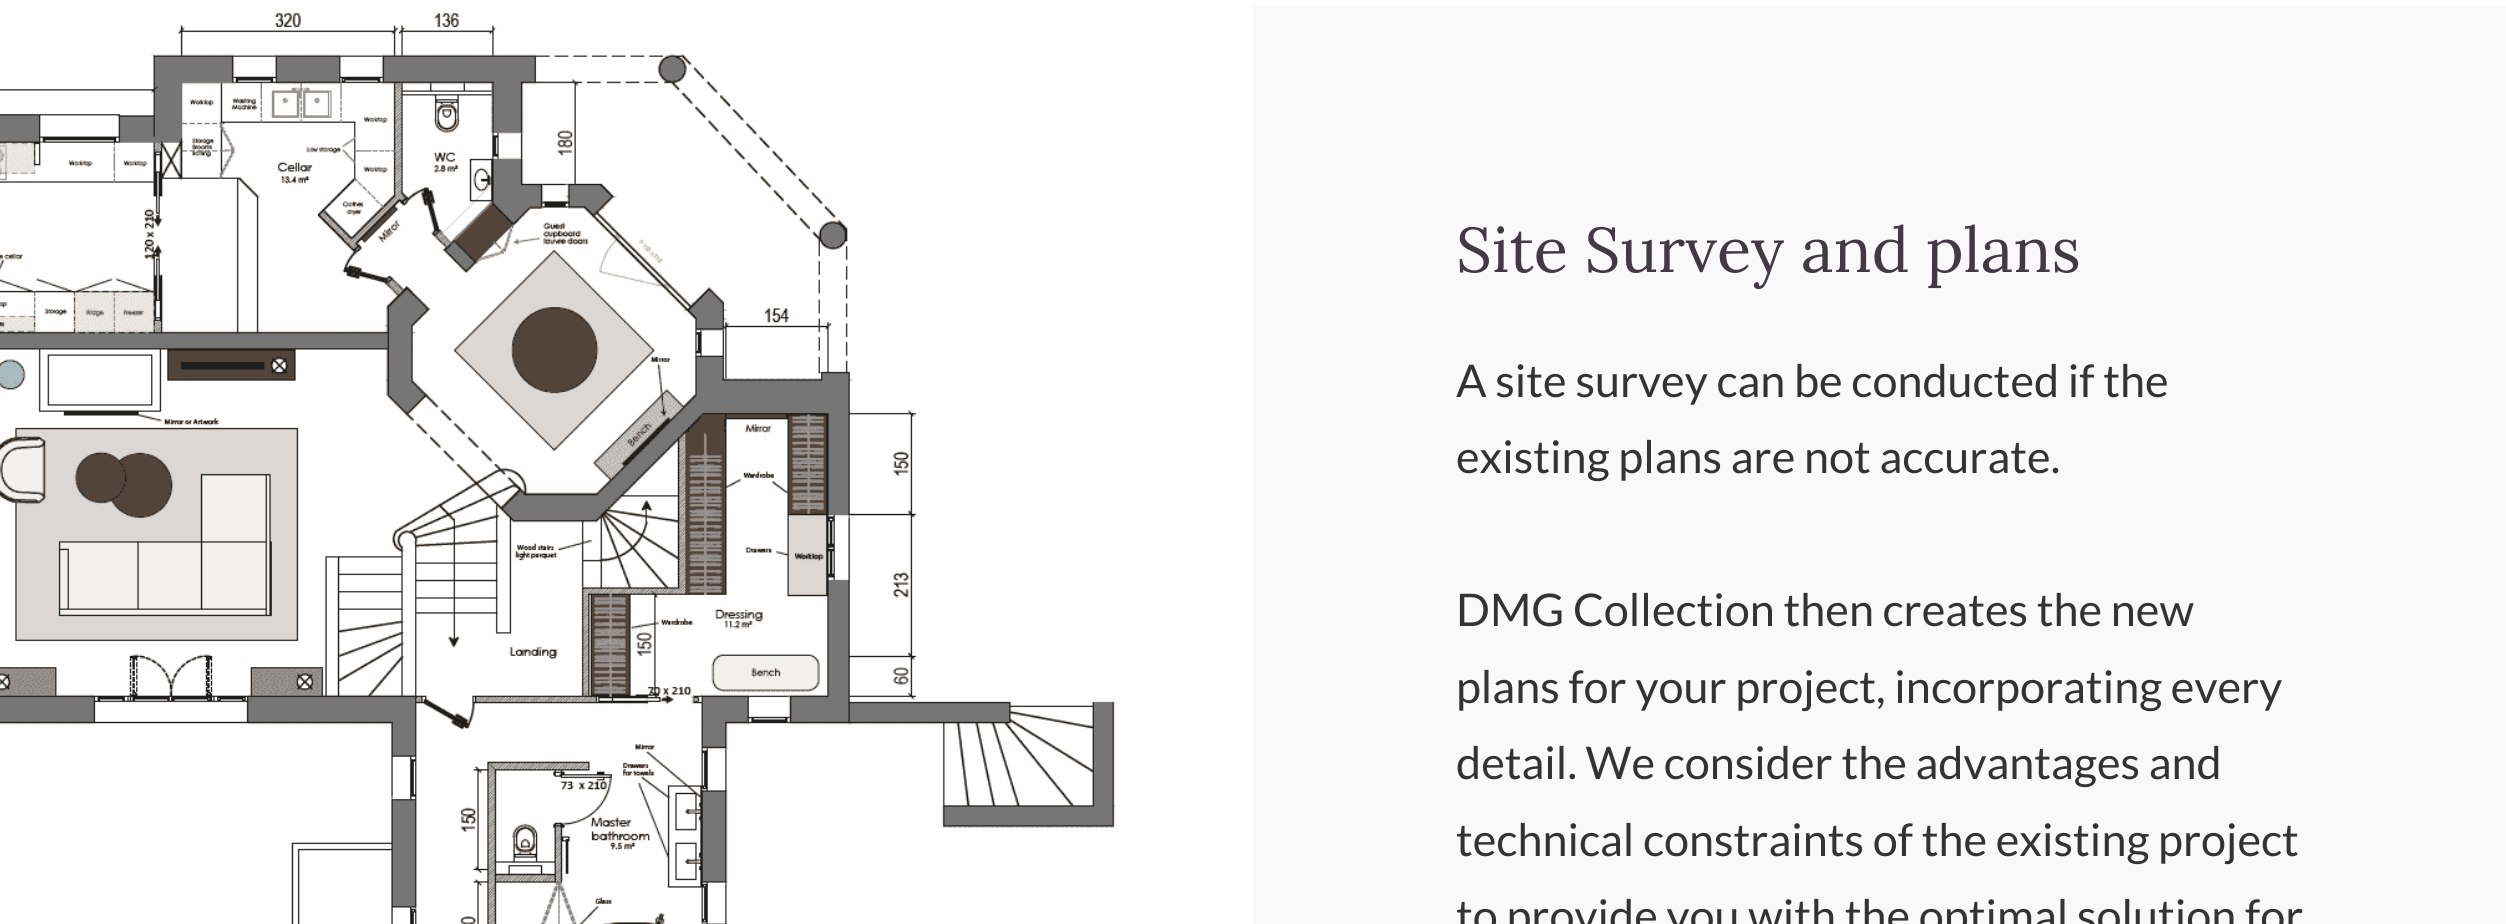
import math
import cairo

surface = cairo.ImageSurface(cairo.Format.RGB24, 2506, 924)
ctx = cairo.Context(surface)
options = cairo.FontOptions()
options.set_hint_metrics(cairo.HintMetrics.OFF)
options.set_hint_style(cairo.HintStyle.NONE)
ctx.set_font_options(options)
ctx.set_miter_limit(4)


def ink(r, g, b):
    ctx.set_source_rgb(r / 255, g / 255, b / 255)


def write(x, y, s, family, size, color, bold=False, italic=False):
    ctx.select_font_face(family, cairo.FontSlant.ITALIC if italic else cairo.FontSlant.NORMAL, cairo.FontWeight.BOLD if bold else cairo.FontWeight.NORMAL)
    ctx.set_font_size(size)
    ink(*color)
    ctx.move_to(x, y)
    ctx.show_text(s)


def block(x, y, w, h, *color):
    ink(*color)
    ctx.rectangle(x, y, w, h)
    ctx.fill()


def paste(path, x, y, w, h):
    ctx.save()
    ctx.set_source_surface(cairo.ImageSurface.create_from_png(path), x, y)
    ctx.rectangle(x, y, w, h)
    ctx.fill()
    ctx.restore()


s1 = dict(family="Lora", size=63, color=(66, 58, 67))
s2 = dict(family="Lato", size=45, color=(51, 51, 51))

ink(255, 255, 255)
ctx.paint()
paste("pic1.png", 0, 13, 1116, 911)
block(1253, 5, 1253, 919, 250, 249, 249)
write(1456, 272, "Site Survey and plans", **s1)
write(1456, 397, "A site survey can be conducted if the", **s2)
write(1456, 473, "existing plans are not accurate.", **s2)
write(1456, 626, "DMG Collection then creates the new", **s2)
write(1456, 703, "plans for your project, incorporating every", **s2)
write(1456, 779, "detail. We consider the advantages and", **s2)
write(1456, 856, "technical constraints of the existing project", **s2)
write(1456, 932, "to provide you with the optimal solution for", **s2)
surface.write_to_png("screenshot.png")
